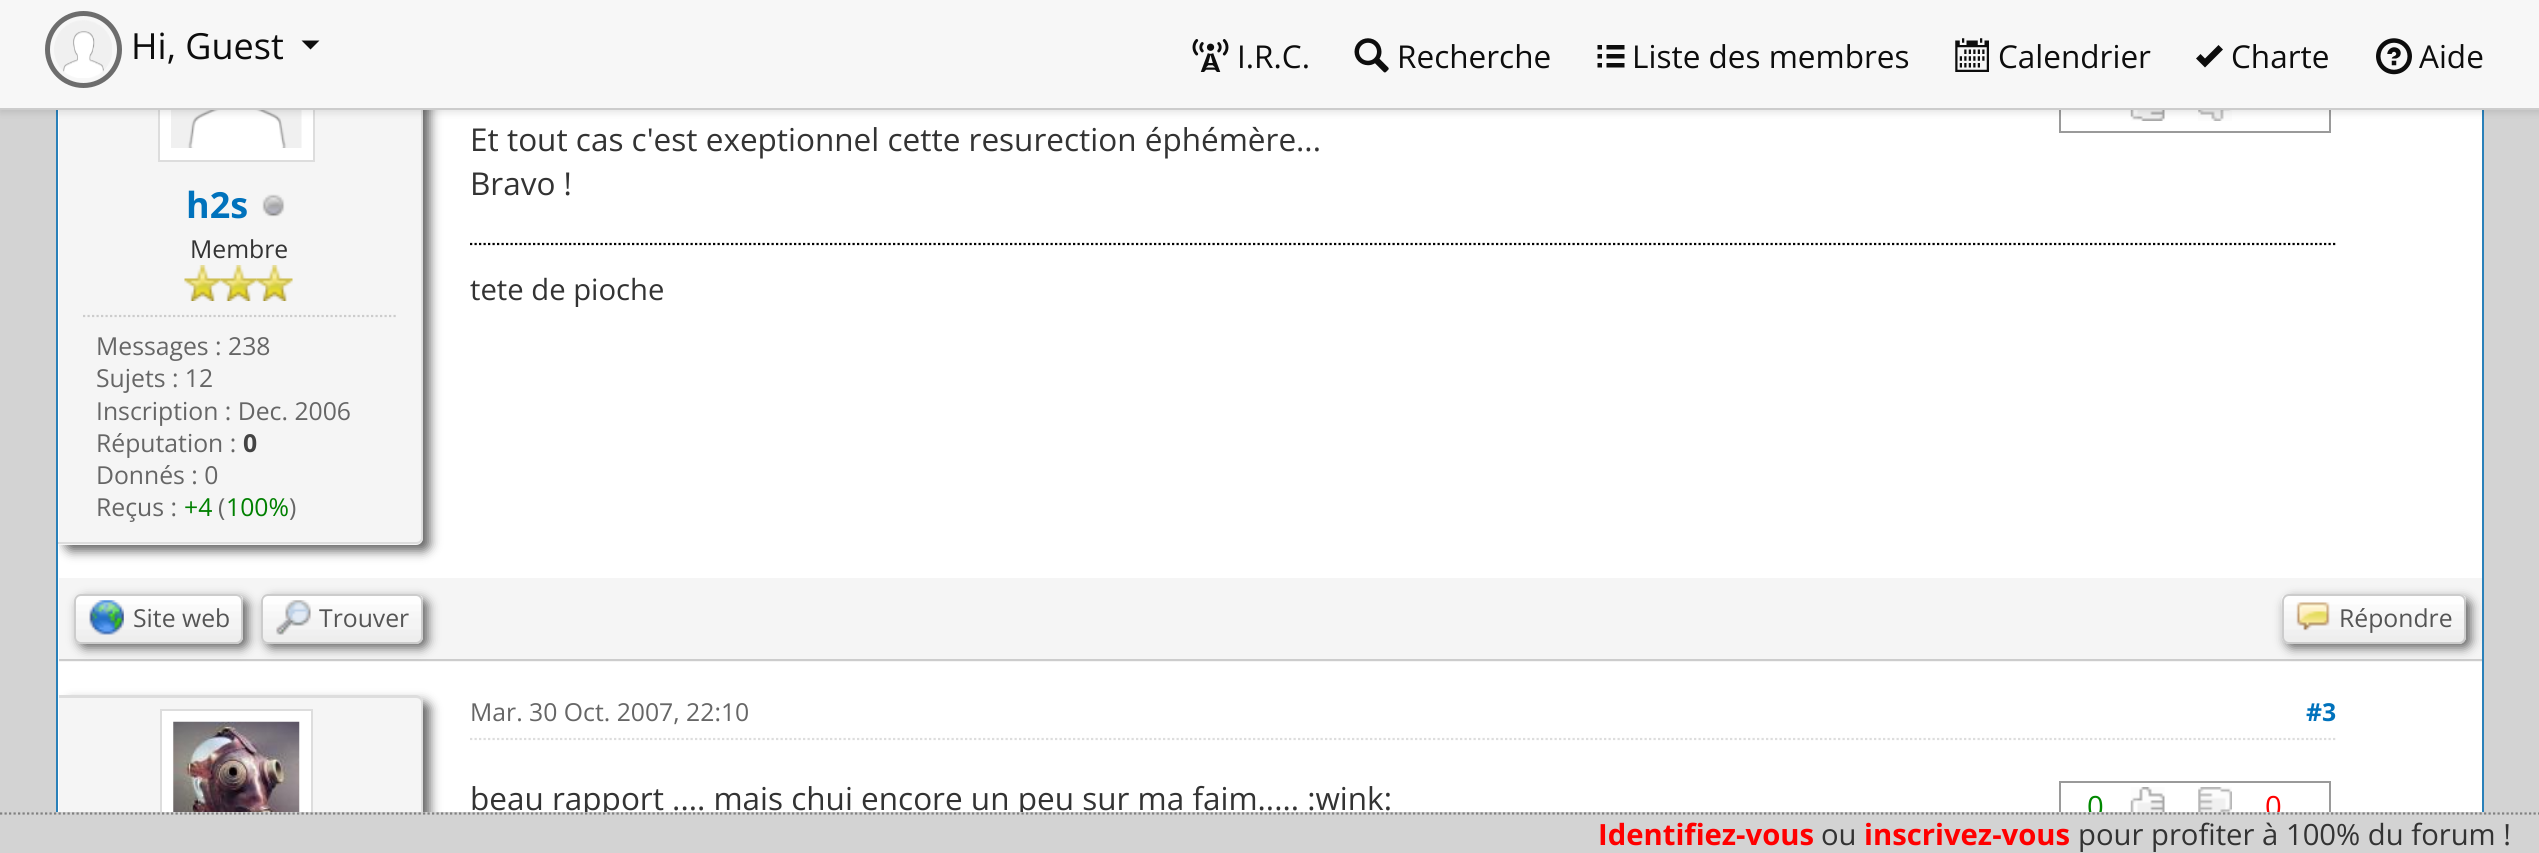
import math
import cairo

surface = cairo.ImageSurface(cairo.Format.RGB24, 2539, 853)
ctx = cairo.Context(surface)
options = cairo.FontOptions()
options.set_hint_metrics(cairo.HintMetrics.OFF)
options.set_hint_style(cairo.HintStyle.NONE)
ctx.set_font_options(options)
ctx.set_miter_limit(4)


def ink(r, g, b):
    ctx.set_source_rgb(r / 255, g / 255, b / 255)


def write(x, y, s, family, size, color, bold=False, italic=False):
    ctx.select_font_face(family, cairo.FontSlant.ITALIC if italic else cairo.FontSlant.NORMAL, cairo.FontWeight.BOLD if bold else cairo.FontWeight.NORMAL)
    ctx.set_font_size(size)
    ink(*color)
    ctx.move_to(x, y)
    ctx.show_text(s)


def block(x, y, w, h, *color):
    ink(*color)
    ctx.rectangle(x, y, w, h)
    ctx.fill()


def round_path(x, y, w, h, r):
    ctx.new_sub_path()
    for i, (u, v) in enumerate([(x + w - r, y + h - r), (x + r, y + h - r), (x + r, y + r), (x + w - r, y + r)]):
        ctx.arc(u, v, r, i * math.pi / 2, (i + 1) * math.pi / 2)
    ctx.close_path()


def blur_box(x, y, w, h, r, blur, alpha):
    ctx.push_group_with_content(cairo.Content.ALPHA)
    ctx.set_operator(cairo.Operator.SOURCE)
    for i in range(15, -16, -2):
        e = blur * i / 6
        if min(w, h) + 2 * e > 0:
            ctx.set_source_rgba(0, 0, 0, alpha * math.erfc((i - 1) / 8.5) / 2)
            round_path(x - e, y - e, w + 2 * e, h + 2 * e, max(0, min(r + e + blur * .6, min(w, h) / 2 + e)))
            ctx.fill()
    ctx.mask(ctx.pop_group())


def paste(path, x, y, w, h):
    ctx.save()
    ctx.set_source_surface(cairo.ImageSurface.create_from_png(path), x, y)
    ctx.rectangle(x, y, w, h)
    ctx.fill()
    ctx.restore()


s1 = dict(family="Open Sans", size=36, color=(13, 13, 13))
s2 = dict(family="Open Sans", size=31.5, color=(13, 13, 13))
s3 = dict(family="Open Sans", size=36, color=(0, 114, 188), bold=True)
s4 = dict(family="Open Sans", size=24.75, color=(51, 51, 51))
s5 = dict(family="Open Sans", size=24.75, color=(102, 102, 102))
s6 = dict(family="Open Sans", size=24.75, color=(68, 68, 68), bold=True)
s7 = dict(family="Open Sans", size=24.75, color=(0, 128, 0))
s8 = dict(family="Open Sans", size=31.5, color=(51, 51, 51))
s9 = dict(family="Open Sans", size=29.25, color=(51, 51, 51))
s10 = dict(family="Open Sans", size=24.75, color=(85, 85, 85))
s11 = dict(family="Open Sans", size=24.75, color=(0, 114, 188), bold=True)
s12 = dict(family="Open Sans", size=29.25, color=(0, 136, 0))
s13 = dict(family="Open Sans", size=29.25, color=(255, 0, 0))
s14 = dict(family="Open Sans", size=29.25, color=(255, 0, 0), bold=True)

ink(211, 211, 211)
ctx.paint()
block(58, 110, 2424, 702, 255, 255, 255)
block(2482, 110, 2, 702, 41, 128, 185)
block(56, 110, 2, 702, 41, 128, 185)
ctx.save()
ctx.rectangle(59, 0, 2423, 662)
ctx.clip()
ink(101, 101, 101)
blur_box(65, -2, 365, 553, 7, 5.5, 1)
ctx.restore()
ink(245, 245, 245)
ctx.new_path()
ctx.move_to(59, -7)
ctx.line_to(416, -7)
ctx.curve_to(420, -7, 423, -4, 423, 0)
ctx.line_to(423, 538)
ctx.curve_to(423, 542, 420, 545, 416, 545)
ctx.line_to(59, 545)
ctx.close_path()
ctx.fill()
ink(221, 221, 221)
ctx.set_fill_rule(cairo.FillRule.EVEN_ODD)
ctx.new_path()
ctx.move_to(58, -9)
ctx.line_to(416, -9)
ctx.curve_to(420, -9, 423, -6, 423, -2)
ctx.line_to(423, 538)
ctx.curve_to(423, 541, 420, 544, 416, 544)
ctx.line_to(58, 544)
ctx.close_path()
ctx.move_to(58, -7)
ctx.line_to(416, -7)
ctx.curve_to(419, -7, 421, -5, 421, -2)
ctx.line_to(421, 538)
ctx.curve_to(421, 540, 419, 542, 416, 542)
ctx.line_to(58, 542)
ctx.close_path()
ctx.fill()
block(160, 110, 153, 50, 255, 255, 255)
ctx.rectangle(159, 6, 155, 155)
ink(221, 221, 221)
ctx.stroke()
paste("pic7.png", 171, 110, 131, 38)
block(2329, 110, 2, 23, 154, 154, 154)
block(2059, 131, 272, 2, 154, 154, 154)
block(2059, 110, 2, 23, 154, 154, 154)
paste("pic12.png", 2130, 110, 35, 11)
paste("pic13.png", 2198, 110, 34, 11)
ink(0, 0, 0)
blur_box(0, 2, 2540, 111, 0, 3.5, 0.1)
block(0, 0, 2539, 108, 247, 247, 247)
block(0, 108, 2539, 2, 204, 204, 204)
ctx.arc(83.5, 49.5, 36, 0, 2 * math.pi)
ink(109, 109, 109)
ctx.set_line_width(5)
ctx.stroke()
paste("pic1.png", 54, 20, 58, 58)
write(131, 59, "Hi, Guest", **s1)
ctx.set_fill_rule(cairo.FillRule.WINDING)
ctx.new_path()
ctx.move_to(301.5, 40.5)
ctx.line_to(319.5, 40.5)
ctx.line_to(310.5, 49.5)
ctx.close_path()
ctx.fill()
paste("pic2.png", 1192, 39, 37, 33)
write(1237, 68, "I.R.C.", **s2)
paste("pic3.png", 1354, 38, 35, 35)
write(1397, 68, "Recherche", **s2)
paste("pic4.png", 1597, 45, 28, 23)
write(1632, 68, "Liste des membres", **s2)
paste("pic5.png", 1955, 38, 34, 34)
write(1998, 68, "Calendrier", **s2)
ctx.new_path()
ctx.move_to(2218.5, 45)
ctx.line_to(2205, 58.5)
ctx.line_to(2200.5, 54)
ctx.line_to(2196, 58.5)
ctx.line_to(2205, 67.5)
ctx.line_to(2223, 49.5)
ctx.close_path()
ctx.fill()
write(2231, 68, "Charte", **s2)
paste("pic6.png", 2376, 38, 36, 37)
write(2419, 68, "Aide", **s2)
write(186, 218, "h2s", **s3)
paste("pic8.png", 262, 194, 23, 23)
write(190, 258, "Membre", **s4)
paste("pic9.png", 184, 265, 37, 36)
paste("pic10.png", 220, 265, 37, 36)
paste("pic11.png", 256, 265, 37, 36)
ctx.new_path()
ctx.move_to(83, 316)
ctx.line_to(396, 316)
ink(204, 204, 204)
ctx.set_line_width(2.2)
ctx.set_dash([2.25, 2.25])
ctx.stroke()
write(96, 355, "Messages : 238", **s5)
write(96, 387, "Sujets : 12", **s5)
write(96, 420, "Inscription : Dec. 2006", **s5)
write(96, 452, "Réputation :", **s5)
write(243, 452, "0", **s6)
write(96, 484, "Donnés : 0", **s5)
write(96, 516, "Reçus :", **s5)
write(184, 516, "+4", **s7)
write(218, 516, "(", **s5)
write(226, 516, "100%", **s7)
write(289, 516, ")", **s5)
write(470, 151, "Et tout cas c'est exeptionnel cette resurection éphémère...", **s8)
write(470, 195, "Bravo !", **s8)
ctx.new_path()
ctx.move_to(470, 244)
ctx.line_to(2335.5, 244)
ink(0, 0, 0)
ctx.stroke()
write(470, 300, "tete de pioche", **s9)
block(59, 578, 2423, 84, 245, 245, 245)
block(59, 659, 2423, 2, 204, 204, 204)
ink(101, 101, 101)
blur_box(79, 599, 169, 49, 7, 5.5, 1)
ink(238, 238, 238)
round_path(74, 594, 169, 50, 7)
ctx.fill()
paste("pic14.png", 74, 595, 169, 45)
round_path(75, 595, 167, 48, 6)
ink(204, 204, 204)
ctx.set_line_width(2)
ctx.set_dash([])
ctx.stroke()
paste("pic15.png", 89, 600, 35, 35)
write(133, 627, "Site web", **s10)
ink(101, 101, 101)
blur_box(266, 599, 162, 49, 7, 5.5, 1)
ink(238, 238, 238)
round_path(261, 594, 162, 50, 7)
ctx.fill()
paste("pic16.png", 261, 595, 162, 45)
round_path(262, 595, 160, 48, 6)
ink(204, 204, 204)
ctx.stroke()
paste("pic17.png", 276, 600, 35, 35)
write(319, 627, "Trouver", **s10)
ink(101, 101, 101)
blur_box(2286, 599, 185, 49, 7, 5.5, 1)
ink(238, 238, 238)
round_path(2282, 594, 184, 50, 7)
ctx.fill()
paste("pic18.png", 2281, 595, 185, 45)
round_path(2283, 595, 182, 48, 6)
ink(204, 204, 204)
ctx.stroke()
paste("pic19.png", 2296, 602, 34, 29)
write(2339, 627, "Répondre", **s10)
ctx.save()
ctx.rectangle(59, 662, 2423, 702)
ctx.clip()
ink(101, 101, 101)
blur_box(65, 702, 365, 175, 7, 5.5, 1)
ctx.restore()
ink(245, 245, 245)
ctx.new_path()
ctx.move_to(59, 695)
ctx.line_to(416, 695)
ctx.curve_to(420, 695, 423, 698, 423, 702)
ctx.line_to(423, 853)
ctx.curve_to(423, 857, 420, 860, 416, 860)
ctx.line_to(59, 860)
ctx.close_path()
ctx.fill()
ctx.save()
ctx.rectangle(59, 662, 2423, 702)
ctx.clip()
ink(221, 221, 221)
ctx.set_fill_rule(cairo.FillRule.EVEN_ODD)
ctx.new_path()
ctx.move_to(58, 695)
ctx.line_to(416, 695)
ctx.curve_to(420, 695, 423, 698, 423, 702)
ctx.line_to(423, 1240)
ctx.curve_to(423, 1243, 420, 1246, 416, 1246)
ctx.line_to(58, 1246)
ctx.close_path()
ctx.move_to(58, 698)
ctx.line_to(416, 698)
ctx.curve_to(419, 698, 421, 700, 421, 702)
ctx.line_to(421, 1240)
ctx.curve_to(421, 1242, 419, 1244, 416, 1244)
ctx.line_to(58, 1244)
ctx.close_path()
ctx.fill()
ctx.restore()
block(162, 711, 149, 101, 255, 255, 255)
ctx.rectangle(161, 710, 151, 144)
ink(221, 221, 221)
ctx.stroke()
paste("pic20.png", 173, 721, 127, 91)
ctx.new_path()
ctx.move_to(470, 739)
ctx.line_to(2335.5, 739)
ctx.set_line_width(2.2)
ctx.set_dash([2.25, 2.25])
ctx.stroke()
write(470, 721, "Mar. 30 Oct. 2007, 22:10", **s5)
write(2306, 721, "#3", **s11)
write(470, 810, "beau rapport .... mais chui encore un peu sur ma faim..... :wink:", **s8)
block(2059, 781, 272, 2, 154, 154, 154)
block(2329, 781, 2, 31, 154, 154, 154)
block(2059, 781, 2, 31, 154, 154, 154)
write(2087, 817, "0", **s12)
paste("pic21.png", 2130, 787, 35, 25)
paste("pic22.png", 2198, 787, 34, 25)
write(2265, 817, "0", **s13)
block(59, 812, 2221, 41, 211, 211, 211)
ctx.new_path()
ctx.move_to(0, 813.5)
ctx.line_to(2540, 813.5)
ink(128, 128, 128)
ctx.stroke()
write(1598, 845, "Identifiez-vous", **s14)
write(1821, 845, "ou", **s9)
write(1864, 845, "inscrivez-vous", **s14)
write(2078, 845, "pour profiter à 100% du forum !", **s9)
surface.write_to_png("screenshot.png")
